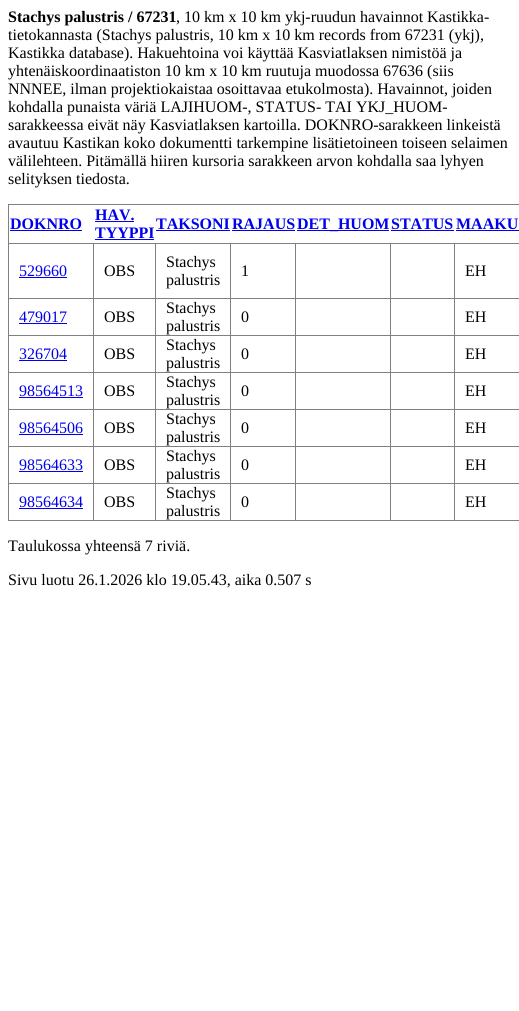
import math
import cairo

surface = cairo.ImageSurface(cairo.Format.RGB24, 519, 1011)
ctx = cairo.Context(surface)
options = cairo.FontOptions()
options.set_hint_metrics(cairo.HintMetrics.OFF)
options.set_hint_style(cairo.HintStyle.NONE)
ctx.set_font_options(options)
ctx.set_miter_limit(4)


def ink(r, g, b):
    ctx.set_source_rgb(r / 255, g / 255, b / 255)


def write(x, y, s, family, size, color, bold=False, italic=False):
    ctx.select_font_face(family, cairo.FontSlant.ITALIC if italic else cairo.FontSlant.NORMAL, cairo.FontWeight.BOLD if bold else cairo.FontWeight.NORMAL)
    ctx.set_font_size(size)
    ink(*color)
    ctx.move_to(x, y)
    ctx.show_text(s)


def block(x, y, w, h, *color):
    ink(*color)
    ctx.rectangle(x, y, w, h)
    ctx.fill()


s1 = dict(family="Liberation Serif", size=16, color=(0, 0, 0), bold=True)
s2 = dict(family="Liberation Serif", size=16, color=(0, 0, 0))
s3 = dict(family="Liberation Serif", size=16, color=(0, 0, 238), bold=True)
s4 = dict(family="Liberation Serif", size=16, color=(0, 0, 238))

ink(255, 255, 255)
ctx.paint()
write(8, 22, "Stachys palustris / 67231", **s1)
write(176, 22, ", 10 km x 10 km ykj-ruudun havainnot Kastikka-", **s2)
write(8, 40, "tietokannasta (Stachys palustris, 10 km x 10 km records from 67231 (ykj),", **s2)
write(8, 58, "Kastikka database). Hakuehtoina voi käyttää Kasviatlaksen nimistöä ja", **s2)
write(8, 76, "yhtenäiskoordinaatiston 10 km x 10 km ruutuja muodossa 67636 (siis", **s2)
write(8, 94, "NNNEE, ilman projektiokaistaa osoittavaa etukolmosta). Havainnot, joiden", **s2)
write(8, 112, "kohdalla punaista väriä LAJIHUOM-, STATUS- TAI YKJ_HUOM-", **s2)
write(8, 130, "sarakkeessa eivät näy Kasviatlaksen kartoilla. DOKNRO-sarakkeen linkeistä", **s2)
write(8, 148, "avautuu Kastikan koko dokumentti tarkempine lisätietoineen toiseen selaimen", **s2)
write(8, 166, "välilehteen. Pitämällä hiiren kursoria sarakkeen arvon kohdalla saa lyhyen", **s2)
write(8, 184, "selityksen tiedosta.", **s2)
block(8, 204, 511, 1, 128, 128, 128)
block(8, 520, 511, 1, 128, 128, 128)
block(8, 204, 1, 317, 128, 128, 128)
write(10, 229, "DOKNRO", **s3)
block(10, 230, 72, 1, 0, 0, 238)
write(95, 220, "HAV.", **s3)
block(95, 221, 39, 1, 0, 0, 238)
write(95, 238, "TYYPPI", **s3)
block(95, 239, 59, 1, 0, 0, 238)
write(156, 229, "TAKSONI", **s3)
block(156, 230, 74, 1, 0, 0, 238)
write(232, 229, "RAJAUS", **s3)
block(232, 230, 63, 1, 0, 0, 238)
block(297, 230, 92, 1, 0, 0, 238)
write(297, 229, "DET_HUOM", **s3)
write(391, 229, "STATUS", **s3)
block(391, 230, 63, 1, 0, 0, 238)
write(456, 229, "MAAKU", **s3)
block(456, 230, 63, 1, 0, 0, 238)
block(454, 243, 65, 1, 128, 128, 128)
block(454, 298, 65, 1, 128, 128, 128)
block(454, 335, 65, 1, 128, 128, 128)
block(454, 372, 65, 1, 128, 128, 128)
block(454, 409, 65, 1, 128, 128, 128)
block(454, 446, 65, 1, 128, 128, 128)
block(454, 483, 65, 1, 128, 128, 128)
block(454, 483, 1, 38, 128, 128, 128)
block(390, 483, 65, 1, 128, 128, 128)
block(454, 446, 1, 38, 128, 128, 128)
block(390, 446, 65, 1, 128, 128, 128)
block(454, 409, 1, 38, 128, 128, 128)
block(390, 409, 65, 1, 128, 128, 128)
block(454, 372, 1, 38, 128, 128, 128)
block(390, 372, 65, 1, 128, 128, 128)
block(454, 335, 1, 38, 128, 128, 128)
block(390, 335, 65, 1, 128, 128, 128)
block(454, 298, 1, 38, 128, 128, 128)
block(390, 298, 65, 1, 128, 128, 128)
block(454, 243, 1, 56, 128, 128, 128)
block(390, 243, 65, 1, 128, 128, 128)
block(390, 483, 1, 38, 128, 128, 128)
block(295, 483, 96, 1, 128, 128, 128)
block(390, 446, 1, 38, 128, 128, 128)
block(295, 446, 96, 1, 128, 128, 128)
block(390, 409, 1, 38, 128, 128, 128)
block(295, 409, 96, 1, 128, 128, 128)
block(390, 372, 1, 38, 128, 128, 128)
block(295, 372, 96, 1, 128, 128, 128)
block(390, 335, 1, 38, 128, 128, 128)
block(295, 335, 96, 1, 128, 128, 128)
block(390, 298, 1, 38, 128, 128, 128)
block(295, 298, 96, 1, 128, 128, 128)
block(390, 243, 1, 56, 128, 128, 128)
block(295, 243, 96, 1, 128, 128, 128)
block(295, 483, 1, 38, 128, 128, 128)
block(230, 483, 66, 1, 128, 128, 128)
block(295, 446, 1, 38, 128, 128, 128)
block(230, 446, 66, 1, 128, 128, 128)
block(295, 409, 1, 38, 128, 128, 128)
block(230, 409, 66, 1, 128, 128, 128)
block(295, 372, 1, 38, 128, 128, 128)
block(230, 372, 66, 1, 128, 128, 128)
block(295, 335, 1, 38, 128, 128, 128)
block(230, 335, 66, 1, 128, 128, 128)
block(295, 298, 1, 38, 128, 128, 128)
block(230, 298, 66, 1, 128, 128, 128)
block(295, 243, 1, 56, 128, 128, 128)
block(230, 243, 66, 1, 128, 128, 128)
block(230, 483, 1, 38, 128, 128, 128)
block(155, 483, 76, 1, 128, 128, 128)
block(230, 446, 1, 38, 128, 128, 128)
block(155, 446, 76, 1, 128, 128, 128)
block(230, 409, 1, 38, 128, 128, 128)
block(155, 409, 76, 1, 128, 128, 128)
block(230, 372, 1, 38, 128, 128, 128)
block(155, 372, 76, 1, 128, 128, 128)
block(230, 335, 1, 38, 128, 128, 128)
block(155, 335, 76, 1, 128, 128, 128)
block(230, 298, 1, 38, 128, 128, 128)
block(155, 298, 76, 1, 128, 128, 128)
block(230, 243, 1, 56, 128, 128, 128)
block(155, 243, 76, 1, 128, 128, 128)
block(155, 483, 1, 38, 128, 128, 128)
block(93, 483, 63, 1, 128, 128, 128)
block(155, 446, 1, 38, 128, 128, 128)
block(93, 446, 63, 1, 128, 128, 128)
block(155, 409, 1, 38, 128, 128, 128)
block(93, 409, 63, 1, 128, 128, 128)
block(155, 372, 1, 38, 128, 128, 128)
block(93, 372, 63, 1, 128, 128, 128)
block(155, 335, 1, 38, 128, 128, 128)
block(93, 335, 63, 1, 128, 128, 128)
block(155, 298, 1, 38, 128, 128, 128)
block(93, 298, 63, 1, 128, 128, 128)
block(155, 243, 1, 56, 128, 128, 128)
block(93, 243, 63, 1, 128, 128, 128)
block(93, 483, 1, 38, 128, 128, 128)
block(8, 483, 86, 1, 128, 128, 128)
block(93, 446, 1, 38, 128, 128, 128)
block(8, 446, 86, 1, 128, 128, 128)
block(93, 409, 1, 38, 128, 128, 128)
block(8, 409, 86, 1, 128, 128, 128)
block(93, 372, 1, 38, 128, 128, 128)
block(8, 372, 86, 1, 128, 128, 128)
block(93, 335, 1, 38, 128, 128, 128)
block(8, 335, 86, 1, 128, 128, 128)
block(93, 298, 1, 38, 128, 128, 128)
block(8, 298, 86, 1, 128, 128, 128)
block(93, 243, 1, 56, 128, 128, 128)
block(8, 243, 86, 1, 128, 128, 128)
write(19, 276, "529660", **s4)
block(19, 277, 48, 1, 0, 0, 238)
write(104, 276, "OBS", **s2)
write(166, 267, "Stachys", **s2)
write(166, 285, "palustris", **s2)
write(241, 276, "1", **s2)
write(465, 276, "EH", **s2)
write(19, 322, "479017", **s4)
block(19, 323, 48, 1, 0, 0, 238)
write(104, 322, "OBS", **s2)
write(166, 313, "Stachys", **s2)
write(166, 331, "palustris", **s2)
write(241, 322, "0", **s2)
write(465, 322, "EH", **s2)
write(19, 359, "326704", **s4)
block(19, 360, 48, 1, 0, 0, 238)
write(104, 359, "OBS", **s2)
write(166, 350, "Stachys", **s2)
write(166, 368, "palustris", **s2)
write(241, 359, "0", **s2)
write(465, 359, "EH", **s2)
write(19, 396, "98564513", **s4)
block(19, 397, 64, 1, 0, 0, 238)
write(104, 396, "OBS", **s2)
write(166, 387, "Stachys", **s2)
write(166, 405, "palustris", **s2)
write(241, 396, "0", **s2)
write(465, 396, "EH", **s2)
write(19, 433, "98564506", **s4)
block(19, 434, 64, 1, 0, 0, 238)
write(104, 433, "OBS", **s2)
write(166, 424, "Stachys", **s2)
write(166, 442, "palustris", **s2)
write(241, 433, "0", **s2)
write(465, 433, "EH", **s2)
write(19, 470, "98564633", **s4)
block(19, 471, 64, 1, 0, 0, 238)
write(104, 470, "OBS", **s2)
write(166, 461, "Stachys", **s2)
write(166, 479, "palustris", **s2)
write(241, 470, "0", **s2)
write(465, 470, "EH", **s2)
write(19, 507, "98564634", **s4)
block(19, 508, 64, 1, 0, 0, 238)
write(104, 507, "OBS", **s2)
write(166, 498, "Stachys", **s2)
write(166, 516, "palustris", **s2)
write(241, 507, "0", **s2)
write(465, 507, "EH", **s2)
write(8, 551, "Taulukossa yhteensä 7 riviä.", **s2)
write(8, 585, "Sivu luotu 26.1.2026 klo 19.05.43, aika 0.507 s", **s2)
surface.write_to_png("screenshot.png")
